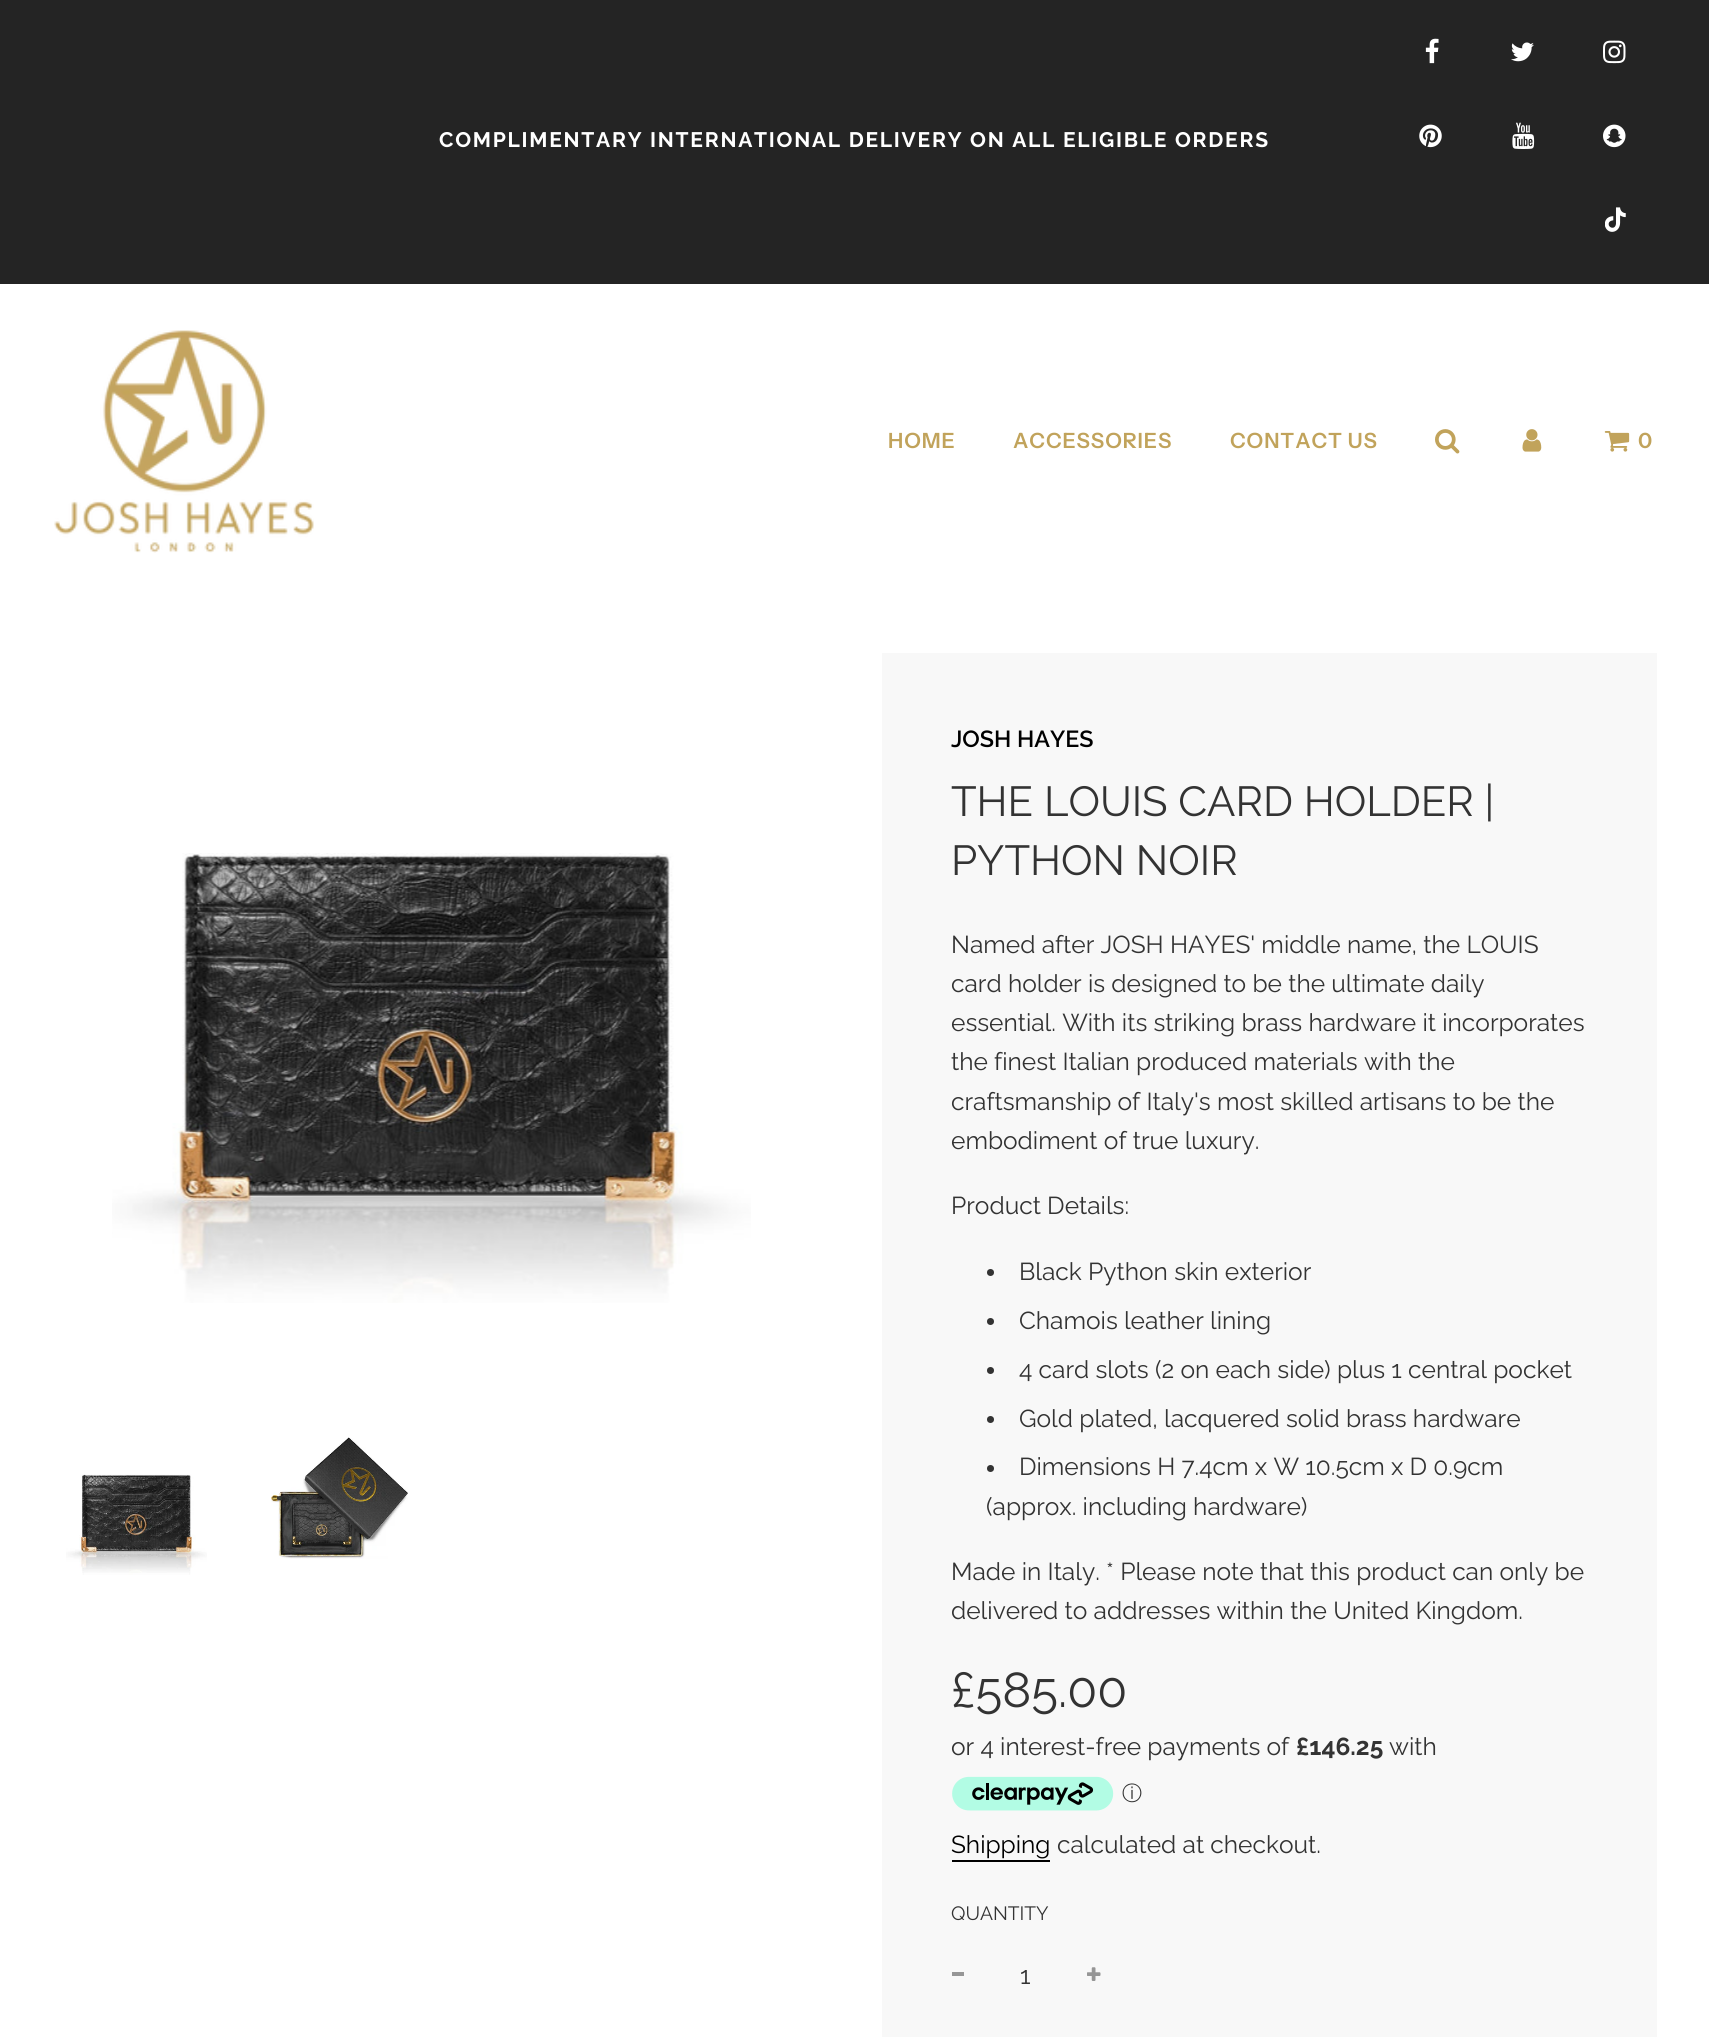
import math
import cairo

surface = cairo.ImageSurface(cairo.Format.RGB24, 1709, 2037)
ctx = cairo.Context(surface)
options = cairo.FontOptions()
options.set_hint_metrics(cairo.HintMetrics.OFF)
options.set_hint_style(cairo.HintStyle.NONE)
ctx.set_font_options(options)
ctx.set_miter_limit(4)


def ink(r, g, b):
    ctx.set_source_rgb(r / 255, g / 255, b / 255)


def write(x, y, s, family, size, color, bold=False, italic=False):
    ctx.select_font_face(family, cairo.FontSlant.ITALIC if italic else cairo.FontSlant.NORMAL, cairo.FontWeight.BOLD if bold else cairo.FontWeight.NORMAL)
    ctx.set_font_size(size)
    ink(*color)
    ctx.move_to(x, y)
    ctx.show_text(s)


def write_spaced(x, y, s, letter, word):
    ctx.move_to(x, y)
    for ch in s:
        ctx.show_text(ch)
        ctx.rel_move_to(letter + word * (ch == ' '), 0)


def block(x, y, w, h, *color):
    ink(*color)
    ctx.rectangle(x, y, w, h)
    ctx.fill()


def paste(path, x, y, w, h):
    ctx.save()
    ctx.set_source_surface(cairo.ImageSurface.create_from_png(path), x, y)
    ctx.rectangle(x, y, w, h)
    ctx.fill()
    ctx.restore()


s1 = dict(family="Instrument Sans SemiBold", size=21, color=(193, 163, 91))
s2 = dict(family="Raleway SemiBold", size=23.25, color=(0, 0, 0))
s3 = dict(family="Raleway", size=42, color=(51, 51, 51))
s4 = dict(family="Raleway", size=24.5, color=(51, 51, 51))
s5 = dict(family="Raleway", size=49, color=(51, 51, 51))
s6 = dict(family="Raleway", size=24.5, color=(51, 51, 51), bold=True)
s7 = dict(family="WenQuanYi Zen Hei Medium", size=20, color=(51, 51, 51))
s8 = dict(family="Raleway", size=24.5, color=(0, 0, 0))
s9 = dict(family="Raleway", size=19.25, color=(51, 51, 51))

ink(255, 255, 255)
ctx.paint()
block(0, 0, 1709, 284, 36, 36, 36)
ctx.select_font_face("Raleway", cairo.FontSlant.NORMAL, cairo.FontWeight.BOLD)
ctx.set_font_size(21)
ink(255, 255, 255)
write_spaced(439, 147, "COMPLIMENTARY INTERNATIONAL DELIVERY ON ALL ELIGIBLE ORDERS", 1.75, 0)
paste("pic1.png", 1425, 38, 14, 26)
paste("pic2.png", 1511, 42, 23, 20)
paste("pic3.png", 1603, 40, 23, 24)
paste("pic4.png", 1419, 124, 23, 24)
paste("pic5.png", 1512, 122, 23, 27)
paste("pic6.png", 1603, 124, 23, 24)
paste("pic7.png", 1605, 207, 21, 25)
paste("pic8.png", 54, 330, 260, 223)
ctx.select_font_face("Instrument Sans SemiBold")
ink(193, 163, 91)
write_spaced(888, 448, "HOME", 0.9, 0)
write_spaced(1013, 448, "ACCESSORIES", 0.9, 0)
write_spaced(1230, 448, "CONTACT US", 0.9, 0)
paste("pic9.png", 1435, 429, 25, 25)
paste("pic10.png", 1522, 429, 20, 23)
paste("pic11.png", 1604, 431, 26, 21)
write(1638, 448, "0", **s1)
paste("pic12.png", 112, 853, 639, 450)
paste("pic13.png", 66, 1474, 141, 101)
paste("pic14.png", 271, 1437, 137, 122)
block(882, 653, 775, 1384, 248, 248, 248)
write(951, 747, "JOSH HAYES", **s2)
write(951, 816, "THE LOUIS CARD HOLDER |", **s3)
write(951, 875, "PYTHON NOIR", **s3)
write(951, 953, "Named after JOSH HAYES' middle name, the LOUIS", **s4)
write(951, 992, "card holder is designed to be the ultimate daily", **s4)
write(951, 1031, "essential. With its striking brass hardware it incorporates", **s4)
write(951, 1070, "the finest Italian produced materials with the", **s4)
write(951, 1110, "craftsmanship of Italy's most skilled artisans to be the", **s4)
write(951, 1149, "embodiment of true luxury.", **s4)
write(951, 1214, "Product Details:", **s4)
ctx.new_path()
ctx.arc(990.5, 1272.5, 3.5, 0, 2 * math.pi)
ctx.fill()
write(1019, 1280, "Black Python skin exterior", **s4)
ctx.new_path()
ctx.arc(990.5, 1321.5, 3.5, 0, 2 * math.pi)
ctx.fill()
write(1019, 1329, "Chamois leather lining", **s4)
ctx.new_path()
ctx.arc(990.5, 1370.5, 3.5, 0, 2 * math.pi)
ctx.fill()
write(1019, 1378, "4 card slots (2 on each side) plus 1 central pocket", **s4)
ctx.new_path()
ctx.arc(990.5, 1419.5, 3.5, 0, 2 * math.pi)
ctx.fill()
write(1019, 1427, "Gold plated, lacquered solid brass hardware", **s4)
ctx.new_path()
ctx.arc(990.5, 1468.5, 3.5, 0, 2 * math.pi)
ctx.fill()
write(1019, 1475, "Dimensions H 7.4cm x W 10.5cm x D 0.9cm", **s4)
write(986, 1515, "(approx. including hardware)", **s4)
write(951, 1580, "Made in Italy. * Please note that this product can only be", **s4)
write(951, 1619, "delivered to addresses within the United Kingdom.", **s4)
write(951, 1707, "£585.00", **s5)
write(951, 1755, "or 4 interest-free payments of", **s4)
write(1296, 1755, "£146.25", **s6)
write(1389, 1755, "with", **s4)
paste("pic15.png", 952, 1776, 162, 35)
write(1122, 1800, "ⓘ", **s7)
write(951, 1853, "Shipping", **s8)
block(952, 1860, 98, 2, 0, 0, 0)
write(1057, 1853, "calculated at checkout.", **s4)
write(951, 1920, "QUANTITY", **s9)
block(952, 1972, 12, 4, 150, 150, 150)
write(1020, 1984, "1", **s4)
paste("pic16.png", 1087, 1967, 14, 14)
surface.write_to_png("screenshot.png")
